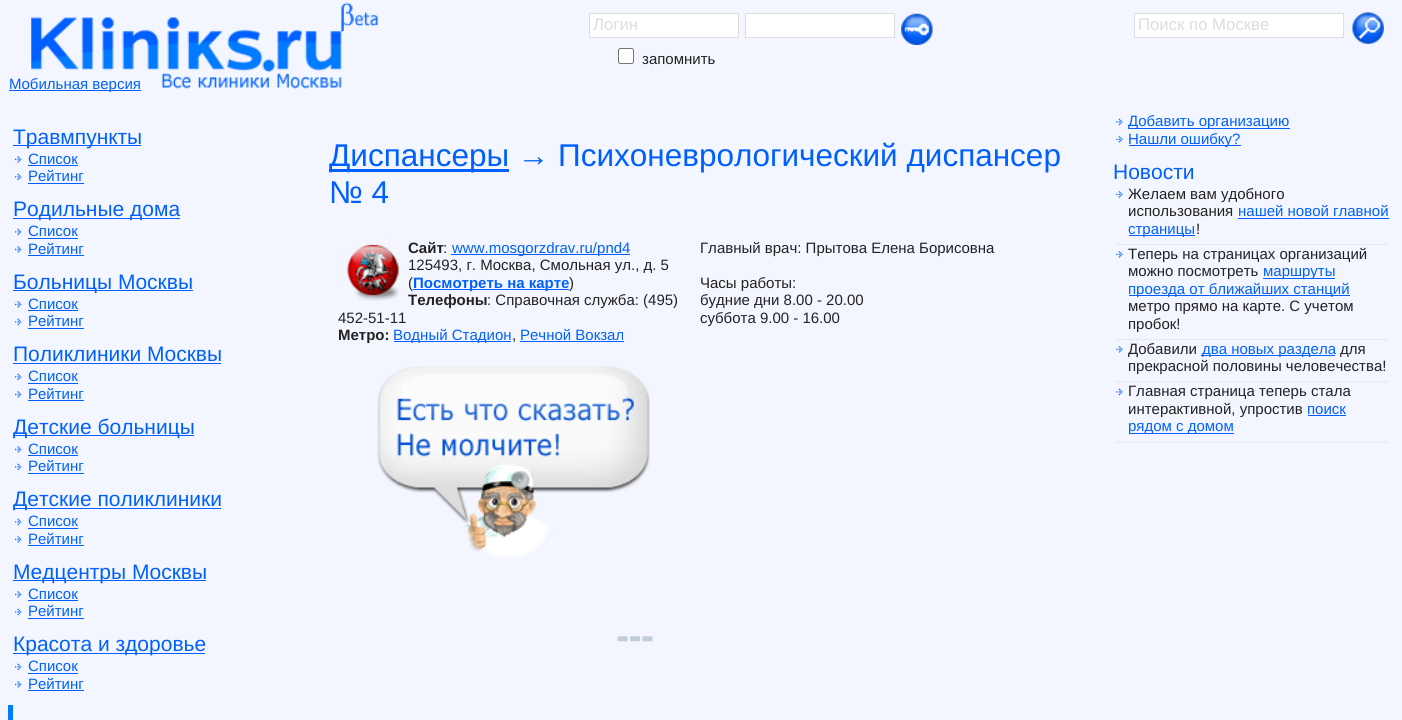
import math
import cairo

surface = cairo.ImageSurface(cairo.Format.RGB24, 1402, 720)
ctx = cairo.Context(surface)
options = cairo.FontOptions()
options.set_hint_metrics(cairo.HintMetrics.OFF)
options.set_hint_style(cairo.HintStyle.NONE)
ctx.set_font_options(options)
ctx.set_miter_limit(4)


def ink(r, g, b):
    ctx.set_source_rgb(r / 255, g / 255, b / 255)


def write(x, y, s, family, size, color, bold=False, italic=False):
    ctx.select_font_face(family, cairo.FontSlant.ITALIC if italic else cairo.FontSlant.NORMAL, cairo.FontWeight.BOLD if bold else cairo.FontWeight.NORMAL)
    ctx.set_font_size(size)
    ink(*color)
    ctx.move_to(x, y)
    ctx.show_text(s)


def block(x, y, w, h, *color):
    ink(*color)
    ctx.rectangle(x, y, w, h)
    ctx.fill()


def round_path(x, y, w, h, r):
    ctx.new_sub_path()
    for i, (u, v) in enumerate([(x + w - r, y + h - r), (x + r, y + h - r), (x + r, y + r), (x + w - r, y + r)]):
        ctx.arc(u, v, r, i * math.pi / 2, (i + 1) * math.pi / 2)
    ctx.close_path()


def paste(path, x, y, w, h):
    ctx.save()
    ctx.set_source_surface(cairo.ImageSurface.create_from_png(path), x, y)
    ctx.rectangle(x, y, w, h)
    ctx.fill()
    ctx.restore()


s1 = dict(family="Liberation Sans", size=16.75, color=(221, 221, 221))
s2 = dict(family="Liberation Sans", size=15, color=(34, 34, 34))
s3 = dict(family="Liberation Sans", size=15, color=(0, 96, 255))
s4 = dict(family="Liberation Sans", size=21, color=(0, 96, 255))
s5 = dict(family="Liberation Sans", size=31.5, color=(0, 96, 255))
s6 = dict(family="Liberation Sans", size=15, color=(34, 34, 34), bold=True)
s7 = dict(family="Liberation Sans", size=15, color=(0, 96, 255), bold=True)

ink(244, 246, 255)
ctx.paint()
ink(255, 255, 255)
ctx.rectangle(589.5, 13.5, 149, 24)
ctx.fill_preserve()
ink(221, 221, 221)
ctx.set_line_width(1)
ctx.stroke()
write(593, 30, "Логин", **s1)
ink(255, 255, 255)
ctx.rectangle(745.5, 13.5, 149, 24)
ctx.fill_preserve()
ink(221, 221, 221)
ctx.stroke()
paste("pic1.png", 901, 13, 32, 32)
ink(255, 255, 255)
round_path(618.5, 48.5, 15, 15, 2)
ctx.fill_preserve()
ink(118, 118, 118)
ctx.stroke()
write(642, 64, "запомнить", **s2)
ink(255, 255, 255)
ctx.rectangle(1134.5, 13.5, 209, 24)
ctx.fill_preserve()
ink(221, 221, 221)
ctx.stroke()
write(1138, 30, "Поиск по Москве", **s1)
paste("pic2.png", 1352, 12, 32, 32)
paste("pic3.png", 31, 17, 311, 72)
paste("pic4.png", 341, 2, 37, 30)
block(9, 90, 132, 1, 0, 96, 255)
write(9, 89, "Мобильная версия", **s3)
block(13, 145, 128, 1, 0, 96, 255)
write(13, 144, "Травмпункты", **s4)
paste("pic5.png", 15, 156, 7, 7)
write(28, 164, "Список", **s3)
block(28, 165, 50, 1, 0, 96, 255)
paste("pic6.png", 15, 173, 7, 8)
write(28, 181, "Рейтинг", **s3)
block(28, 183, 56, 1, 0, 96, 255)
block(13, 218, 167, 1, 0, 96, 255)
write(13, 216, "Родильные дома", **s4)
paste("pic6.png", 15, 228, 7, 8)
write(28, 236, "Список", **s3)
block(28, 238, 50, 1, 0, 96, 255)
paste("pic5.png", 15, 246, 7, 7)
write(28, 254, "Рейтинг", **s3)
block(28, 255, 56, 1, 0, 96, 255)
block(13, 290, 180, 1, 0, 96, 255)
write(13, 289, "Больницы Москвы", **s4)
paste("pic5.png", 15, 301, 7, 7)
write(28, 309, "Список", **s3)
block(28, 310, 50, 1, 0, 96, 255)
paste("pic6.png", 15, 318, 7, 8)
write(28, 326, "Рейтинг", **s3)
block(28, 328, 56, 1, 0, 96, 255)
write(13, 361, "Поликлиники Москвы", **s4)
block(13, 363, 208, 1, 0, 96, 255)
paste("pic6.png", 15, 373, 7, 8)
write(28, 381, "Список", **s3)
block(28, 383, 50, 1, 0, 96, 255)
paste("pic5.png", 15, 391, 7, 7)
write(28, 399, "Рейтинг", **s3)
block(28, 400, 56, 1, 0, 96, 255)
block(13, 435, 181, 1, 0, 96, 255)
write(13, 434, "Детские больницы", **s4)
paste("pic5.png", 15, 446, 7, 7)
write(28, 454, "Список", **s3)
block(28, 455, 50, 1, 0, 96, 255)
paste("pic6.png", 15, 463, 7, 8)
write(28, 471, "Рейтинг", **s3)
block(28, 473, 56, 1, 0, 96, 255)
block(13, 508, 208, 1, 0, 96, 255)
write(13, 506, "Детские поликлиники", **s4)
paste("pic6.png", 15, 518, 7, 8)
write(28, 526, "Список", **s3)
block(28, 528, 50, 1, 0, 96, 255)
paste("pic5.png", 15, 536, 7, 7)
write(28, 544, "Рейтинг", **s3)
block(28, 545, 56, 1, 0, 96, 255)
block(13, 580, 193, 1, 0, 96, 255)
write(13, 579, "Медцентры Москвы", **s4)
paste("pic7.png", 15, 591, 7, 7)
write(28, 599, "Список", **s3)
block(28, 600, 50, 1, 0, 96, 255)
paste("pic6.png", 15, 608, 7, 8)
write(28, 616, "Рейтинг", **s3)
block(28, 618, 56, 1, 0, 96, 255)
block(13, 653, 192, 1, 0, 96, 255)
write(13, 651, "Красота и здоровье", **s4)
paste("pic6.png", 15, 663, 7, 8)
write(28, 671, "Список", **s3)
block(28, 673, 50, 1, 0, 96, 255)
paste("pic5.png", 15, 681, 7, 7)
write(28, 689, "Рейтинг", **s3)
block(28, 690, 56, 1, 0, 96, 255)
block(8, 705, 5, 15, 0, 122, 255)
block(329, 169, 180, 3, 0, 96, 255)
write(329, 166, "Диспансеры → Психоневрологический диспансер", **s5)
write(329, 203, "№ 4", **s5)
paste("pic8.png", 341, 239, 60, 62)
write(408, 253, "Сайт", **s6)
write(443, 253, ":", **s2)
block(451, 254, 179, 1, 0, 96, 255)
write(452, 253, "www.mosgorzdrav.ru/pnd4", **s3)
write(408, 270, "125493, г. Москва, Смольная ул., д. 5", **s2)
write(408, 288, "(", **s2)
block(413, 289, 156, 1, 0, 96, 255)
write(413, 288, "Посмотреть на карте", **s7)
write(569, 288, ")", **s2)
write(408, 305, "Телефоны", **s6)
write(487, 305, ": Справочная служба: (495)", **s2)
write(338, 323, "452-51-11", **s2)
write(338, 340, "Метро:", **s6)
block(394, 341, 117, 1, 0, 96, 255)
write(393, 340, "Водный Стадион", **s3)
write(512, 340, ",", **s2)
write(520, 340, "Речной Вокзал", **s3)
block(520, 341, 104, 1, 0, 96, 255)
paste("pic9.png", 377, 366, 273, 192)
write(700, 253, "Главный врач: Прытова Елена Борисовна", **s2)
write(700, 288, "Часы работы:", **s2)
write(700, 305, "будние дни 8.00 - 20.00", **s2)
write(700, 323, "суббота 9.00 - 16.00", **s2)
paste("pic10.png", 617, 636, 36, 6)
paste("pic11.png", 1116, 118, 7, 8)
block(1129, 128, 161, 1, 0, 96, 255)
write(1128, 126, "Добавить организацию", **s3)
paste("pic12.png", 1116, 136, 7, 7)
block(1129, 145, 112, 1, 0, 96, 255)
write(1128, 144, "Нашли ошибку?", **s3)
write(1113, 179, "Новости", **s4)
paste("pic12.png", 1116, 191, 7, 7)
ctx.new_path()
ctx.move_to(1116, 244.5)
ctx.line_to(1389, 244.5)
ink(221, 221, 221)
ctx.set_line_width(1.2)
ctx.set_dash([1.25, 1.25])
ctx.stroke()
write(1128, 199, "Желаем вам удобного", **s2)
write(1128, 216, "использования", **s2)
write(1238, 216, "нашей новой главной", **s3)
block(1238, 218, 151, 1, 0, 96, 255)
block(1129, 235, 66, 1, 0, 96, 255)
write(1128, 234, "страницы", **s3)
write(1196, 234, "!", **s2)
paste("pic12.png", 1116, 251, 7, 7)
ctx.new_path()
ctx.move_to(1116, 339.5)
ctx.line_to(1389, 339.5)
ink(221, 221, 221)
ctx.stroke()
write(1128, 259, "Теперь на страницах организаций", **s2)
write(1128, 276, "можно посмотреть", **s2)
block(1263, 278, 72, 1, 0, 96, 255)
write(1263, 276, "маршруты", **s3)
block(1129, 295, 221, 1, 0, 96, 255)
write(1128, 294, "проезда от ближайших станций", **s3)
write(1128, 311, "метро прямо на карте. С учетом", **s2)
write(1128, 329, "пробок!", **s2)
paste("pic12.png", 1116, 346, 7, 7)
ctx.new_path()
ctx.move_to(1116, 382)
ctx.line_to(1389, 382)
ink(221, 221, 221)
ctx.stroke()
write(1128, 354, "Добавили", **s2)
block(1201, 355, 134, 1, 0, 96, 255)
write(1202, 354, "два новых раздела", **s3)
write(1340, 354, "для", **s2)
write(1128, 371, "прекрасной половины человечества!", **s2)
paste("pic11.png", 1116, 388, 7, 8)
ctx.new_path()
ctx.move_to(1116, 442)
ctx.line_to(1389, 442)
ink(221, 221, 221)
ctx.stroke()
write(1128, 396, "Главная страница теперь стала", **s2)
write(1128, 414, "интерактивной, упростив", **s2)
write(1307, 414, "поиск", **s3)
block(1308, 415, 38, 1, 0, 96, 255)
block(1129, 433, 105, 1, 0, 96, 255)
write(1128, 431, "рядом с домом", **s3)
surface.write_to_png("screenshot.png")
